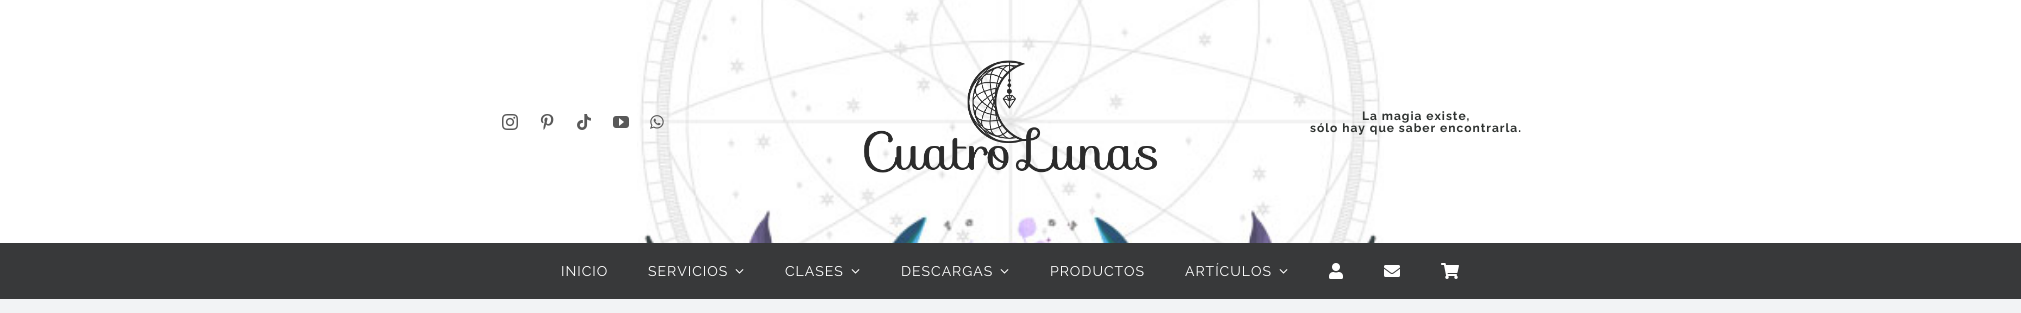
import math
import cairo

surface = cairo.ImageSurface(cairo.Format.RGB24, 2021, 313)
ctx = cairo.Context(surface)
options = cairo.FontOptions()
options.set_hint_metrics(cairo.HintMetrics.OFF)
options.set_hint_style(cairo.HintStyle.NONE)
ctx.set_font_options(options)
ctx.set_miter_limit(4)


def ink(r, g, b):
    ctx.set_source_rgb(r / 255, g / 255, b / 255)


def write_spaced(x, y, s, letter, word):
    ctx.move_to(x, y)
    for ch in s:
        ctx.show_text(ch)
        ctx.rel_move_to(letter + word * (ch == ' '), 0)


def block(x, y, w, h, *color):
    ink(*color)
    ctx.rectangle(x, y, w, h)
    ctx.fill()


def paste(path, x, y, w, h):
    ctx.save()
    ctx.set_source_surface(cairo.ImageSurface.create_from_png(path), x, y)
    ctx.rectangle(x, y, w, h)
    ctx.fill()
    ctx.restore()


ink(255, 255, 255)
ctx.paint()
paste("pic1.png", 637, 0, 747, 243)
paste("pic2.png", 502, 114, 16, 16)
paste("pic3.png", 540, 114, 14, 16)
paste("pic4.png", 577, 114, 14, 16)
paste("pic5.png", 613, 116, 16, 12)
paste("pic6.png", 650, 115, 14, 14)
paste("pic7.png", 864, 60, 294, 113)
ctx.select_font_face("Raleway", cairo.FontSlant.NORMAL, cairo.FontWeight.BOLD)
ctx.set_font_size(12)
ink(47, 51, 49)
write_spaced(1362, 120, "La magia existe,", 1, 0)
write_spaced(1310, 132, "sólo hay que saber encontrarla.", 1, 0)
block(0, 243, 2021, 56, 56, 57, 58)
ctx.select_font_face("Raleway")
ctx.set_font_size(14)
ink(255, 255, 255)
write_spaced(561, 276, "INICIO", 1, 0)
write_spaced(648, 276, "SERVICIOS", 1, 0)
paste("pic8.png", 735, 269, 9, 5)
write_spaced(785, 276, "CLASES", 1, 0)
paste("pic8.png", 851, 269, 9, 5)
write_spaced(901, 276, "DESCARGAS", 1, 0)
paste("pic8.png", 1000, 269, 9, 5)
write_spaced(1050, 276, "PRODUCTOS", 1, 0)
write_spaced(1185, 276, "ARTÍCULOS", 1, 0)
paste("pic8.png", 1279, 269, 9, 5)
paste("pic9.png", 1329, 263, 14, 16)
paste("pic10.png", 1384, 265, 16, 12)
paste("pic11.png", 1441, 263, 18, 16)
block(0, 299, 2021, 14, 242, 243, 245)
surface.write_to_png("screenshot.png")
